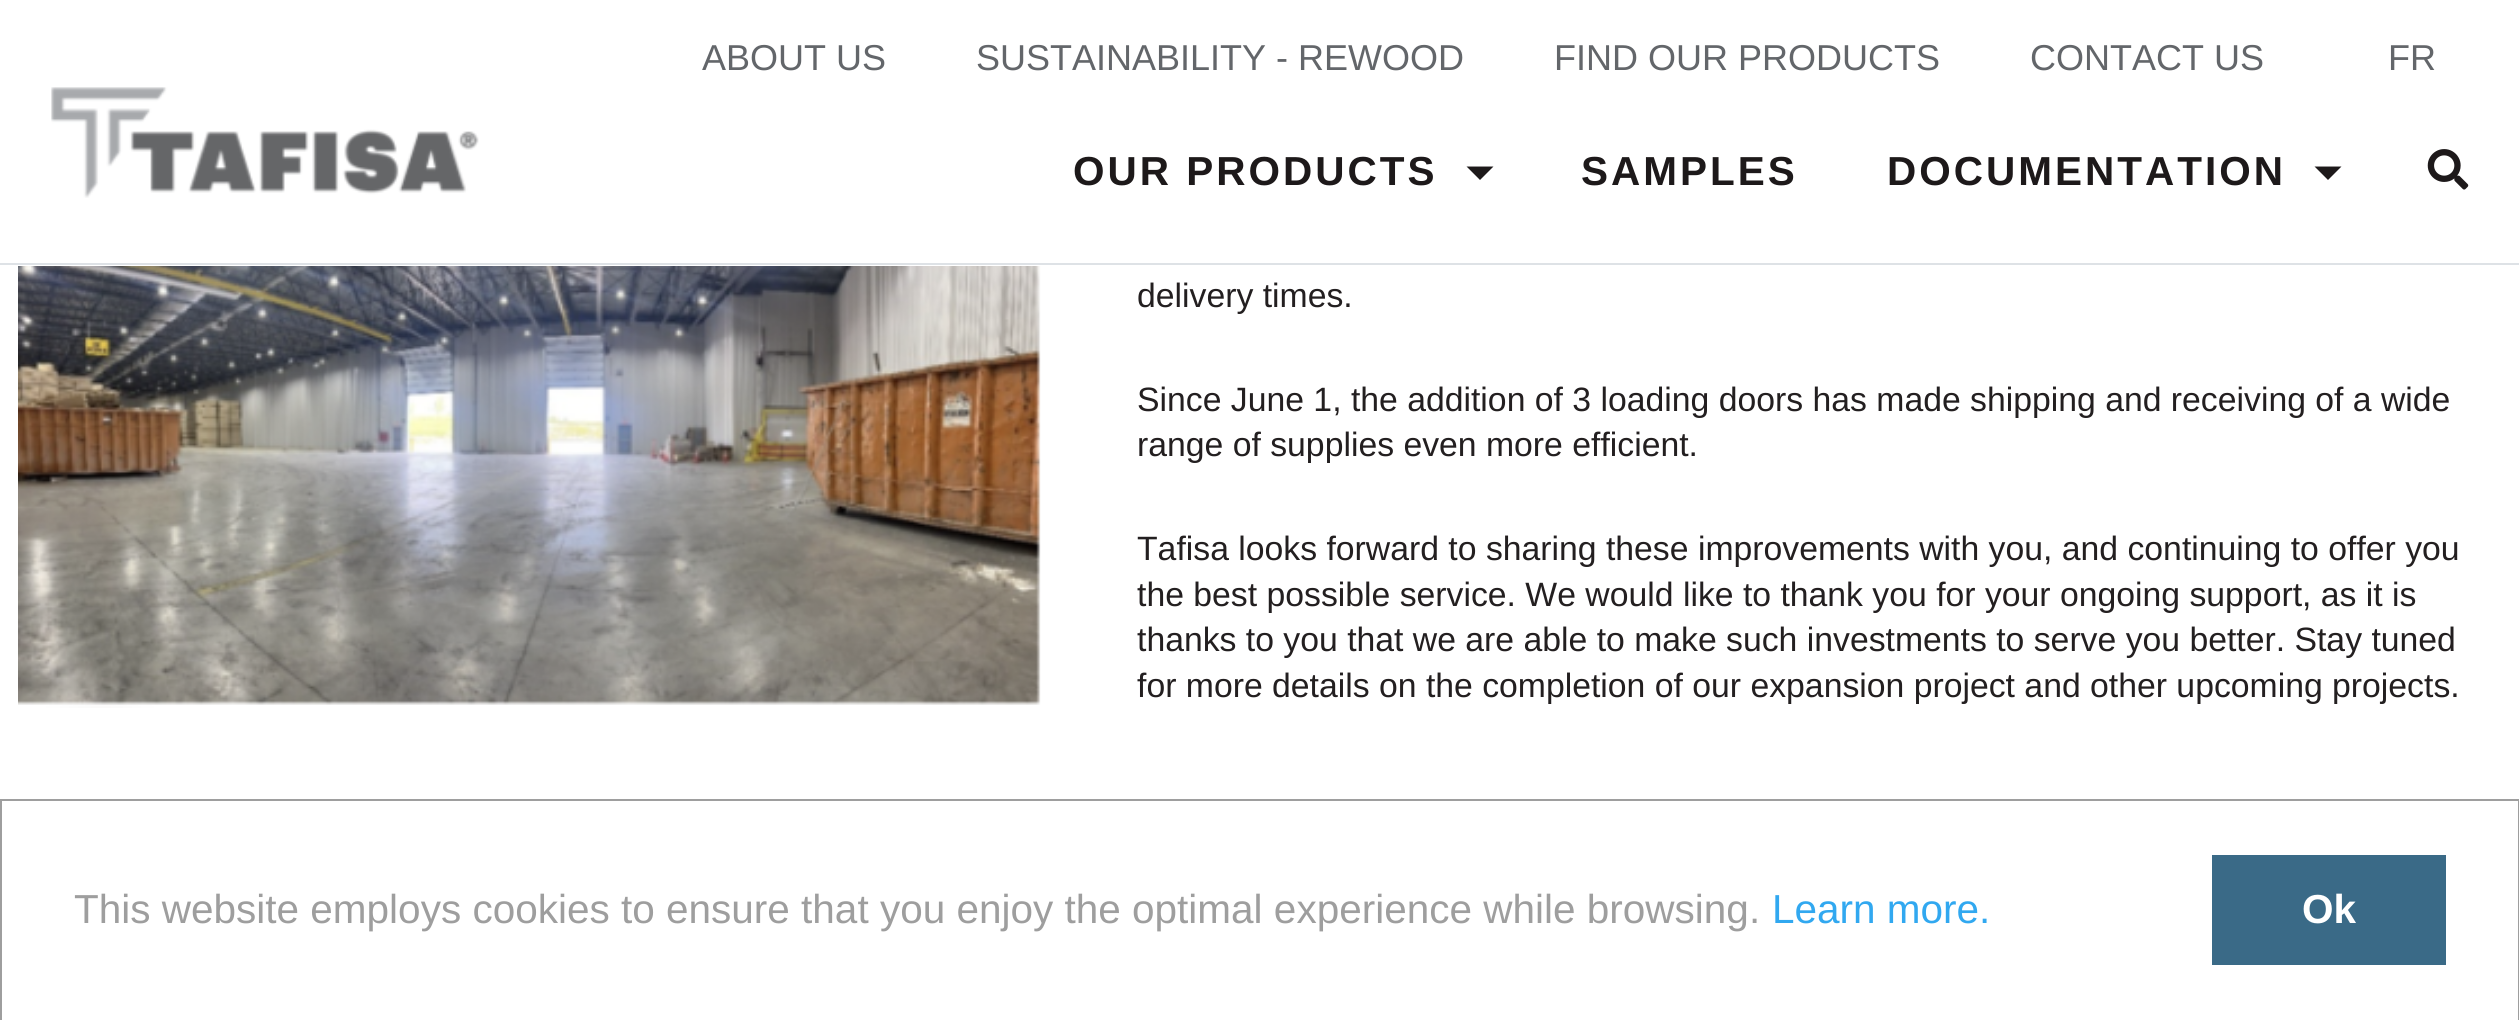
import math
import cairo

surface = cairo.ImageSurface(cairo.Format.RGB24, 2519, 1020)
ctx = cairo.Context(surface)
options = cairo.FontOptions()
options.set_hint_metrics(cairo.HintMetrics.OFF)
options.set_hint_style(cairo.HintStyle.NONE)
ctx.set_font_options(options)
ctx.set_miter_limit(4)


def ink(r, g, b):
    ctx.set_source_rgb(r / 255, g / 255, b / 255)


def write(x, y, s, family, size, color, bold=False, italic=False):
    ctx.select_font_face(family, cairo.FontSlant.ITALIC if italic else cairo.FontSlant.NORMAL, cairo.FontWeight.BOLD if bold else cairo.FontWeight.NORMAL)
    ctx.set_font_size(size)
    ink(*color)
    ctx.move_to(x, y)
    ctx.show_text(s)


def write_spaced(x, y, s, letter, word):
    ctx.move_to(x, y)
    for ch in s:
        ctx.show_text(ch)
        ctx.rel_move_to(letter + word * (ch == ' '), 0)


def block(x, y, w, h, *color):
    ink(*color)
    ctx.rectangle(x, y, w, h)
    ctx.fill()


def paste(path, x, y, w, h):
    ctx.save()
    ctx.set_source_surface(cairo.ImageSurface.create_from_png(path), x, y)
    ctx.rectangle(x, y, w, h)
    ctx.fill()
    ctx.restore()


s1 = dict(family="Liberation Sans", size=36, color=(99, 102, 106))
s2 = dict(family="Liberation Sans", size=33.75, color=(35, 31, 32))
s3 = dict(family="Liberation Sans", size=40.5, color=(158, 158, 158))
s4 = dict(family="Liberation Sans", size=40.5, color=(49, 168, 240))
s5 = dict(family="Liberation Sans", size=40.5, color=(255, 255, 255), bold=True)

ink(255, 255, 255)
ctx.paint()
write(702, 70, "ABOUT US", **s1)
write(976, 70, "SUSTAINABILITY - REWOOD", **s1)
write(1554, 70, "FIND OUR PRODUCTS", **s1)
write(2030, 70, "CONTACT US", **s1)
write(2388, 70, "FR", **s1)
block(0, 263, 2519, 2, 222, 226, 230)
paste("pic1.png", 51, 87, 428, 111)
ctx.select_font_face("Liberation Sans", cairo.FontSlant.NORMAL, cairo.FontWeight.BOLD)
ctx.set_font_size(40.5)
ink(29, 25, 26)
write_spaced(1073, 185, "OUR PRODUCTS", 3, 0)
ctx.new_path()
ctx.move_to(1466.5, 166.5)
ctx.line_to(1493.5, 166.5)
ctx.line_to(1480, 180)
ctx.close_path()
ctx.fill()
write_spaced(1581, 185, "SAMPLES", 3, 0)
write_spaced(1887, 185, "DOCUMENTATION", 3, 0)
ctx.new_path()
ctx.move_to(2314.5, 166.5)
ctx.line_to(2341.5, 166.5)
ctx.line_to(2328, 180)
ctx.close_path()
ctx.fill()
paste("pic2.png", 2427, 149, 42, 41)
paste("pic3.png", 18, 266, 1023, 442)
write(1137, 307, "delivery times.", **s2)
write(1137, 411, "Since June 1, the addition of 3 loading doors has made shipping and receiving of a wide", **s2)
write(1137, 456, "range of supplies even more efficient.", **s2)
write(1137, 560, "Tafisa looks forward to sharing these improvements with you, and continuing to offer you", **s2)
write(1137, 606, "the best possible service. We would like to thank you for your ongoing support, as it is", **s2)
write(1137, 651, "thanks to you that we are able to make such investments to serve you better. Stay tuned", **s2)
write(1137, 697, "for more details on the completion of our expansion project and other upcoming projects.", **s2)
ctx.rectangle(1, 800, 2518, 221)
ink(158, 158, 158)
ctx.stroke()
write(74, 923, "This website employs cookies to ensure that you enjoy the optimal experience while browsing.", **s3)
write(1772, 923, "Learn more.", **s4)
block(2212, 855, 234, 110, 58, 106, 135)
write(2302, 923, "Ok", **s5)
surface.write_to_png("screenshot.png")
